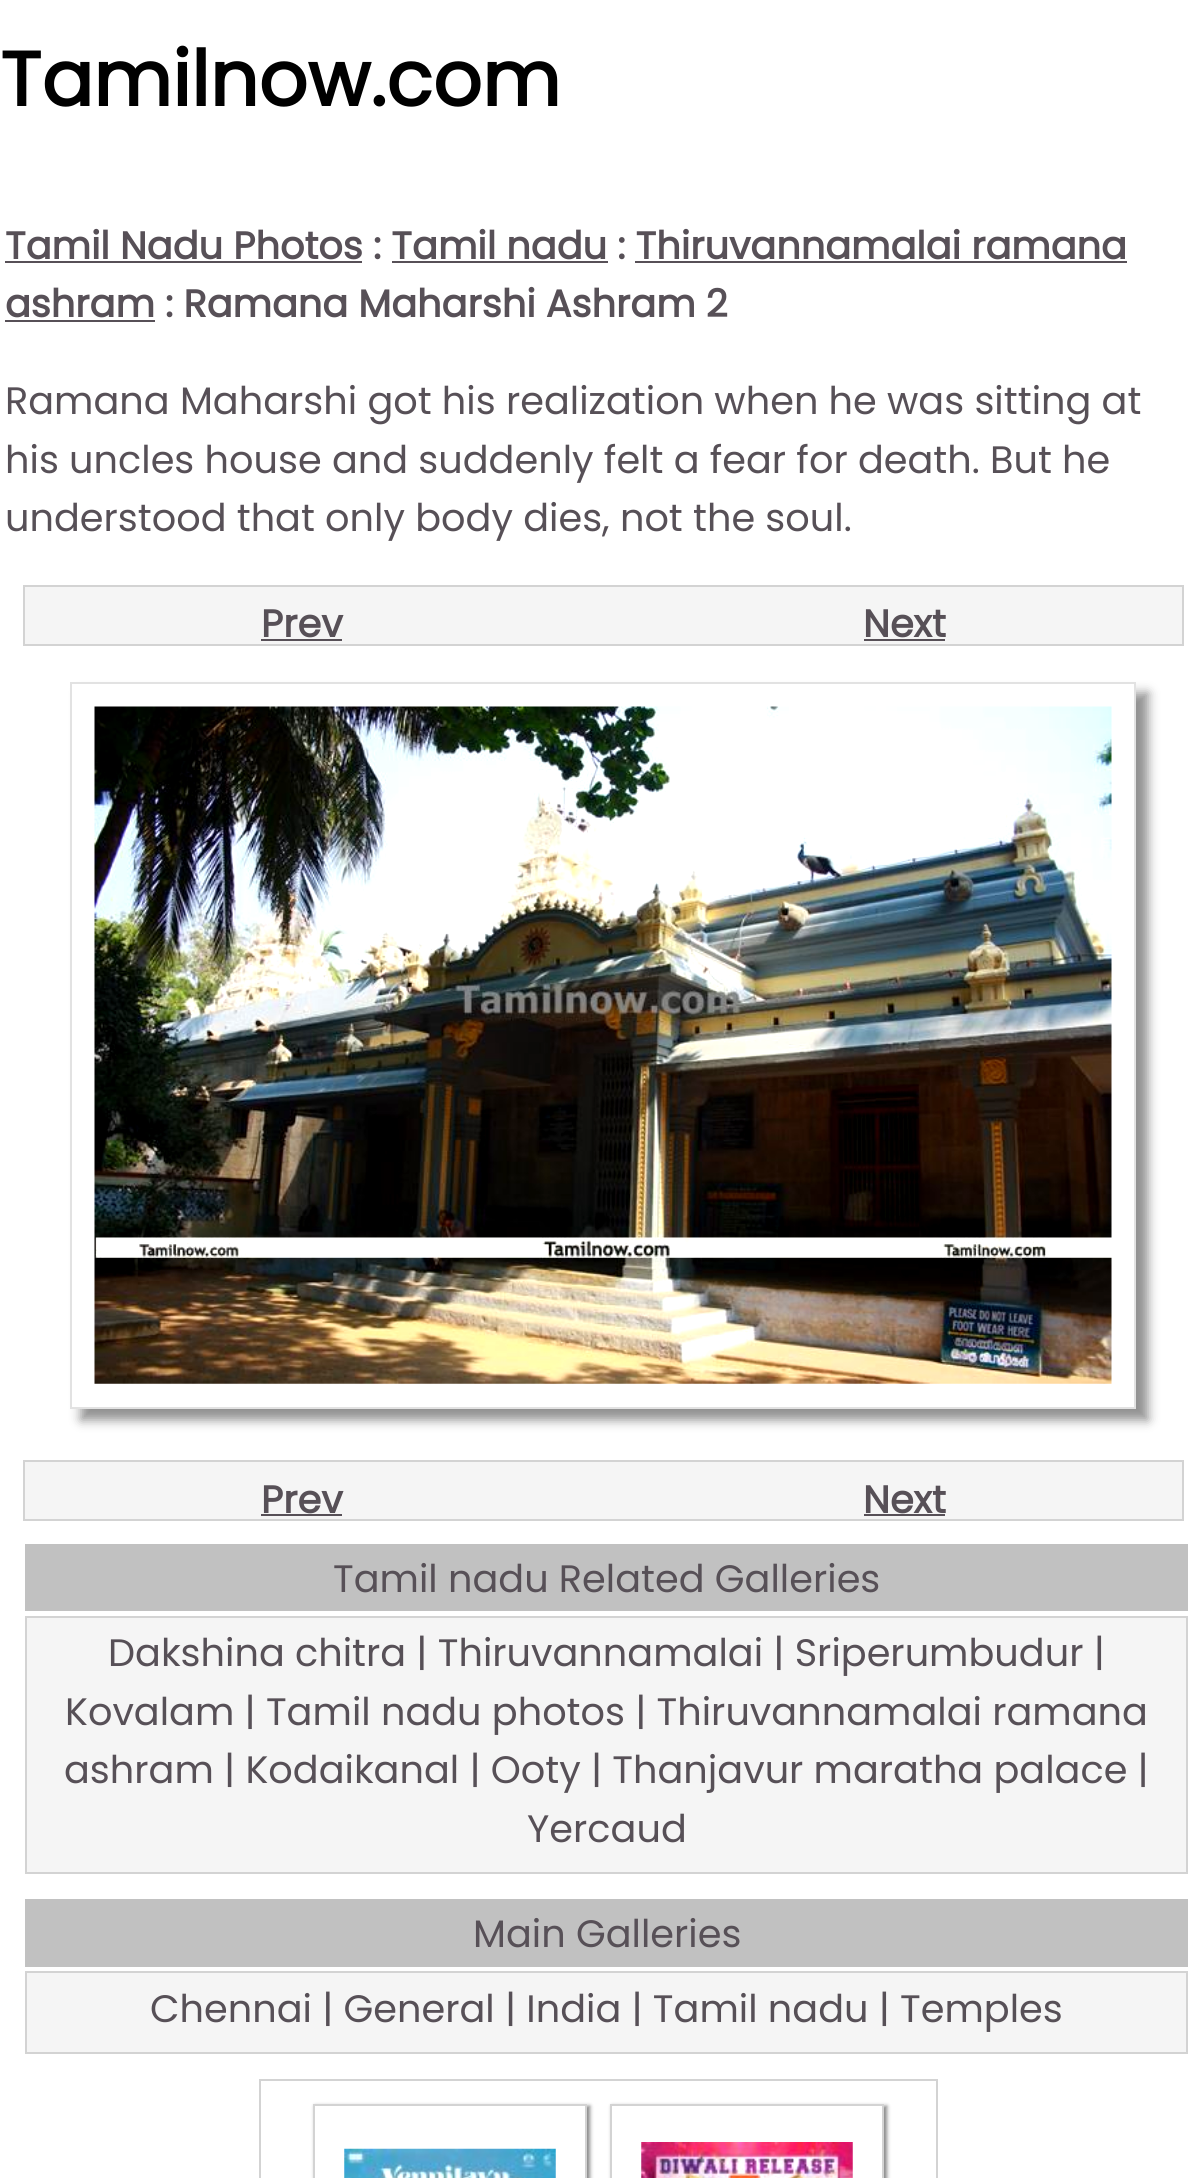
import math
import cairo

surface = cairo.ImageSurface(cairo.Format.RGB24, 1195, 2178)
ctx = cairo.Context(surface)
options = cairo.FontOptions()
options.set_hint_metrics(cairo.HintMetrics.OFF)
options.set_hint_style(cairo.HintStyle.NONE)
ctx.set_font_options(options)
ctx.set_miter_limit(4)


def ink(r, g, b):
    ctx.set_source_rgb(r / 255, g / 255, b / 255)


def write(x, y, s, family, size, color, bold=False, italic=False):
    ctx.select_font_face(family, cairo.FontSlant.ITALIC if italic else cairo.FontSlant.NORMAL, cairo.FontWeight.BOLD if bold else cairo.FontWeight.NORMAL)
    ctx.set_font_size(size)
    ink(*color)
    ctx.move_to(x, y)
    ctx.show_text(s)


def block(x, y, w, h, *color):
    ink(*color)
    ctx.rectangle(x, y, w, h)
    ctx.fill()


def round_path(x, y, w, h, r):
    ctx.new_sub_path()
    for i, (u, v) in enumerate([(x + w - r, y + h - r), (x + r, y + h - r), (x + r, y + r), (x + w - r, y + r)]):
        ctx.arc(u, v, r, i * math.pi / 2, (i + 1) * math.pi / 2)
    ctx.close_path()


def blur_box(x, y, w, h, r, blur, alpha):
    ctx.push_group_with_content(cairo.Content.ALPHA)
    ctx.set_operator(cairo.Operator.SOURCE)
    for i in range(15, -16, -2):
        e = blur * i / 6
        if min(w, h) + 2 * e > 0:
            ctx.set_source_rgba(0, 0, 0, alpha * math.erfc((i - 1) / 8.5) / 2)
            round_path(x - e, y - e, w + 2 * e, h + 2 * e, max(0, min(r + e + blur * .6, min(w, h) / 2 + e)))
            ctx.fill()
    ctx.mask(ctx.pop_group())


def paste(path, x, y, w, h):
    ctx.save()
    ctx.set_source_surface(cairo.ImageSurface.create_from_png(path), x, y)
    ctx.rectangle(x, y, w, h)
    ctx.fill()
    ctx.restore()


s1 = dict(family="Poppins", size=76.5, color=(0, 0, 0), bold=True)
s2 = dict(family="Poppins", size=38.25, color=(87, 80, 87), bold=True)
s3 = dict(family="Poppins", size=38.25, color=(87, 80, 87))

ink(255, 255, 255)
ctx.paint()
write(0, 106, "Tamilnow.com", **s1)
write(5, 259, "Tamil Nadu Photos : Tamil nadu : Thiruvannamalai ramana", **s2)
block(5, 261, 357, 2, 87, 80, 87)
block(392, 261, 216, 2, 87, 80, 87)
block(635, 261, 492, 2, 87, 80, 87)
write(5, 317, "ashram : Ramana Maharshi Ashram 2", **s2)
block(5, 320, 150, 2, 87, 80, 87)
write(5, 414, "Ramana Maharshi got his realization when he was sitting at", **s3)
write(5, 473, "his uncles house and suddenly felt a fear for death. But he", **s3)
write(5, 531, "understood that only body dies, not the soul.", **s3)
ink(245, 245, 245)
ctx.rectangle(24, 586, 1159, 59)
ctx.fill_preserve()
ink(211, 211, 211)
ctx.stroke()
write(261, 637, "Prev", **s2)
block(261, 639, 81, 2, 87, 80, 87)
write(863, 637, "Next", **s2)
block(864, 639, 81, 2, 87, 80, 87)
ink(144, 144, 144)
blur_box(81, 693, 1067, 727, 0, 5.5, 1)
ink(255, 255, 255)
ctx.rectangle(71, 683, 1064, 725)
ctx.fill_preserve()
ink(226, 226, 226)
ctx.stroke()
paste("pic1.png", 94, 706, 1018, 678)
ink(245, 245, 245)
ctx.rectangle(24, 1461, 1159, 59)
ctx.fill_preserve()
ink(211, 211, 211)
ctx.stroke()
write(261, 1513, "Prev", **s2)
block(261, 1514, 81, 2, 87, 80, 87)
write(863, 1513, "Next", **s2)
block(864, 1514, 81, 2, 87, 80, 87)
block(25, 1544, 1163, 67, 193, 193, 193)
write(333, 1592, "Tamil nadu Related Galleries", **s3)
ink(245, 245, 245)
ctx.rectangle(26, 1617, 1161, 256)
ctx.fill_preserve()
ink(211, 211, 211)
ctx.stroke()
write(108, 1666, "Dakshina chitra | Thiruvannamalai | Sriperumbudur |", **s3)
write(65, 1725, "Kovalam | Tamil nadu photos | Thiruvannamalai ramana", **s3)
write(64, 1783, "ashram | Kodaikanal | Ooty | Thanjavur maratha palace |", **s3)
write(527, 1842, "Yercaud", **s3)
block(25, 1899, 1163, 68, 193, 193, 193)
write(473, 1947, "Main Galleries", **s3)
ink(245, 245, 245)
ctx.rectangle(26, 1972, 1161, 81)
ctx.fill_preserve()
ink(211, 211, 211)
ctx.stroke()
write(150, 2022, "Chennai | General | India | Tamil nadu | Temples", **s3)
ctx.rectangle(260, 2080, 677, 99)
ink(211, 211, 211)
ctx.stroke()
ctx.save()
ctx.set_fill_rule(cairo.FillRule.EVEN_ODD)
ctx.new_path()
ctx.move_to(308, 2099)
ctx.line_to(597, 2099)
ctx.line_to(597, 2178)
ctx.line_to(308, 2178)
ctx.close_path()
ctx.move_to(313, 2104)
ctx.line_to(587, 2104)
ctx.line_to(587, 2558)
ctx.line_to(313, 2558)
ctx.close_path()
ctx.clip()
ink(136, 136, 136)
blur_box(315, 2106, 275, 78, 0, 2, 1)
ctx.restore()
ctx.rectangle(314, 2105, 272, 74)
ctx.stroke()
paste("pic2.png", 344, 2148, 212, 30)
ctx.save()
ctx.set_fill_rule(cairo.FillRule.EVEN_ODD)
ctx.new_path()
ctx.move_to(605, 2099)
ctx.line_to(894, 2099)
ctx.line_to(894, 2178)
ctx.line_to(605, 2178)
ctx.close_path()
ctx.move_to(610, 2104)
ctx.line_to(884, 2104)
ctx.line_to(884, 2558)
ctx.line_to(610, 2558)
ctx.close_path()
ctx.clip()
ink(136, 136, 136)
blur_box(612, 2106, 275, 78, 0, 2, 1)
ctx.restore()
ctx.rectangle(611, 2105, 272, 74)
ctx.stroke()
paste("pic3.png", 641, 2142, 212, 36)
surface.write_to_png("screenshot.png")
